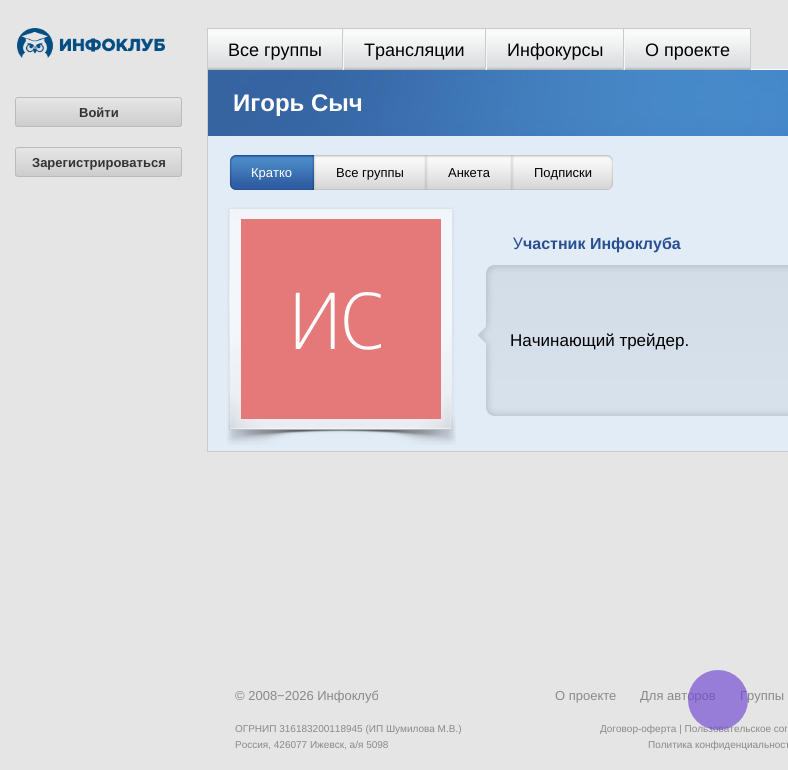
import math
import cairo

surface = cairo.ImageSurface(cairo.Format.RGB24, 788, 770)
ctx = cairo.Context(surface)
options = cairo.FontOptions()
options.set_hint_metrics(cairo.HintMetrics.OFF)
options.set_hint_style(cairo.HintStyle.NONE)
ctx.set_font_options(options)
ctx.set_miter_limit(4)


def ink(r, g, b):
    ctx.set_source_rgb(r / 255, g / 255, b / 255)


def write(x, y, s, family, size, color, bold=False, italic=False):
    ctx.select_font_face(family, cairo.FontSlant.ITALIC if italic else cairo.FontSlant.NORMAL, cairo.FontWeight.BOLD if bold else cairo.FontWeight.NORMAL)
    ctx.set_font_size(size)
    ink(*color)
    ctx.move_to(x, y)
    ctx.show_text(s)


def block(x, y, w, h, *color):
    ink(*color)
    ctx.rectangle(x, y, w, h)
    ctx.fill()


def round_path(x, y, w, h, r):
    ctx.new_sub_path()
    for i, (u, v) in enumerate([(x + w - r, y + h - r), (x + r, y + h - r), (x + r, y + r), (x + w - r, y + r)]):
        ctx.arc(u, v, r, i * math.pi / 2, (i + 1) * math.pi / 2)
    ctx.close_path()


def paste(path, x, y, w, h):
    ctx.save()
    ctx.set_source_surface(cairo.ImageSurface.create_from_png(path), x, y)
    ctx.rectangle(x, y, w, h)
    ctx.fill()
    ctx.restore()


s1 = dict(family="Liberation Sans", size=13, color=(51, 51, 51), bold=True)
s2 = dict(family="Liberation Sans", size=18, color=(0, 0, 0))
s3 = dict(family="Liberation Sans", size=24, color=(255, 255, 255), bold=True)
s4 = dict(family="Liberation Sans", size=13, color=(255, 255, 255))
s5 = dict(family="Liberation Sans", size=13, color=(0, 0, 0))
s6 = dict(family="Noto Sans", size=16, color=(40, 80, 145))
s7 = dict(family="Liberation Sans", size=16, color=(40, 80, 145), bold=True)
s8 = dict(family="Liberation Sans", size=17, color=(0, 0, 0))
s9 = dict(family="Liberation Sans", size=13, color=(137, 137, 137))
s10 = dict(family="Liberation Sans", size=10, color=(137, 137, 137))

ink(229, 229, 229)
ctx.paint()
paste("pic1.png", 17, 28, 148, 30)
ctx.save()
round_path(15, 97, 167, 30, 3)
ctx.clip()
gradient = cairo.LinearGradient(16, 126, 16, 98)
gradient.add_color_stop_rgba(0, 0.804, 0.804, 0.804, 1)
gradient.add_color_stop_rgba(1, 0.902, 0.902, 0.902, 1)
ctx.set_source(gradient)
ctx.rectangle(15, 98, 167, 28)
ctx.fill()
ctx.restore()
round_path(15.5, 97.5, 166, 29, 2.5)
ink(187, 187, 187)
ctx.set_line_width(1)
ctx.stroke()
write(79, 117, "Войти", **s1)
ctx.save()
round_path(15, 147, 167, 30, 3)
ctx.clip()
gradient = cairo.LinearGradient(16, 176, 16, 148)
gradient.add_color_stop_rgba(0, 0.804, 0.804, 0.804, 1)
gradient.add_color_stop_rgba(1, 0.902, 0.902, 0.902, 1)
ctx.set_source(gradient)
ctx.rectangle(15, 148, 167, 28)
ctx.fill()
ctx.restore()
round_path(15.5, 147.5, 166, 29, 2.5)
ink(187, 187, 187)
ctx.stroke()
write(32, 167, "Зарегистрироваться", **s1)
block(207, 28, 1, 42, 203, 203, 203)
block(208, 28, 543, 1, 203, 203, 203)
block(750, 28, 1, 42, 203, 203, 203)
paste("pic2.png", 208, 30, 134, 40)
block(208, 29, 135, 1, 247, 247, 247)
block(342, 29, 1, 41, 203, 203, 203)
write(228, 56, "Все группы", **s2)
block(343, 29, 1, 41, 247, 247, 247)
paste("pic3.png", 344, 30, 141, 40)
block(344, 29, 142, 1, 247, 247, 247)
block(485, 29, 1, 41, 203, 203, 203)
write(364, 56, "Трансляции", **s2)
block(486, 29, 1, 41, 247, 247, 247)
paste("pic4.png", 487, 30, 136, 40)
block(487, 29, 137, 1, 247, 247, 247)
block(623, 29, 1, 41, 203, 203, 203)
write(507, 56, "Инфокурсы", **s2)
block(624, 29, 1, 41, 247, 247, 247)
paste("pic5.png", 625, 30, 125, 40)
block(625, 29, 125, 1, 247, 247, 247)
write(645, 56, "О проекте", **s2)
block(751, 69, 37, 1, 255, 255, 255)
block(207, 451, 581, 1, 203, 203, 203)
block(207, 69, 1, 383, 203, 203, 203)
paste("pic6.png", 208, 70, 580, 66)
write(233, 111, "Игорь Сыч", **s3)
block(208, 136, 580, 315, 226, 236, 246)
paste("pic7.png", 229, 155, 6, 35)
paste("pic8.png", 235, 155, 77, 35)
write(251, 177, "Кратко", **s4)
paste("pic9.png", 312, 155, 2, 35)
paste("pic10.png", 314, 155, 2, 35)
paste("pic11.png", 316, 155, 108, 35)
write(336, 177, "Все группы", **s5)
paste("pic12.png", 424, 155, 2, 35)
paste("pic10.png", 426, 155, 2, 35)
paste("pic13.png", 428, 155, 82, 35)
write(448, 177, "Анкета", **s5)
paste("pic12.png", 510, 155, 2, 35)
paste("pic10.png", 512, 155, 2, 35)
paste("pic14.png", 514, 155, 94, 35)
write(534, 177, "Подписки", **s5)
paste("pic15.png", 608, 155, 5, 35)
paste("pic16.png", 227, 207, 229, 238)
paste("pic17.png", 241, 219, 200, 200)
write(513, 249, "У", **s6)
write(523, 249, "частник Инфоклуба", **s7)
paste("pic18.png", 478, 265, 310, 151)
write(510, 346, "Начинающий трейдер.", **s8)
write(235, 700, "© 2008−2026 Инфоклуб", **s9)
write(555, 700, "О проекте", **s9)
write(640, 700, "Для авторов", **s9)
write(740, 700, "Группы", **s9)
write(235, 732, "ОГРНИП 316183200118945 (ИП Шумилова М.В.)", **s10)
write(235, 748, "Россия, 426077 Ижевск, а/я 5098", **s10)
write(600, 732, "Договор-оферта | Пользовательское сог", **s10)
write(648, 748, "Политика конфиденциальност", **s10)
paste("pic19.png", 688, 670, 60, 60)
surface.write_to_png("screenshot.png")
